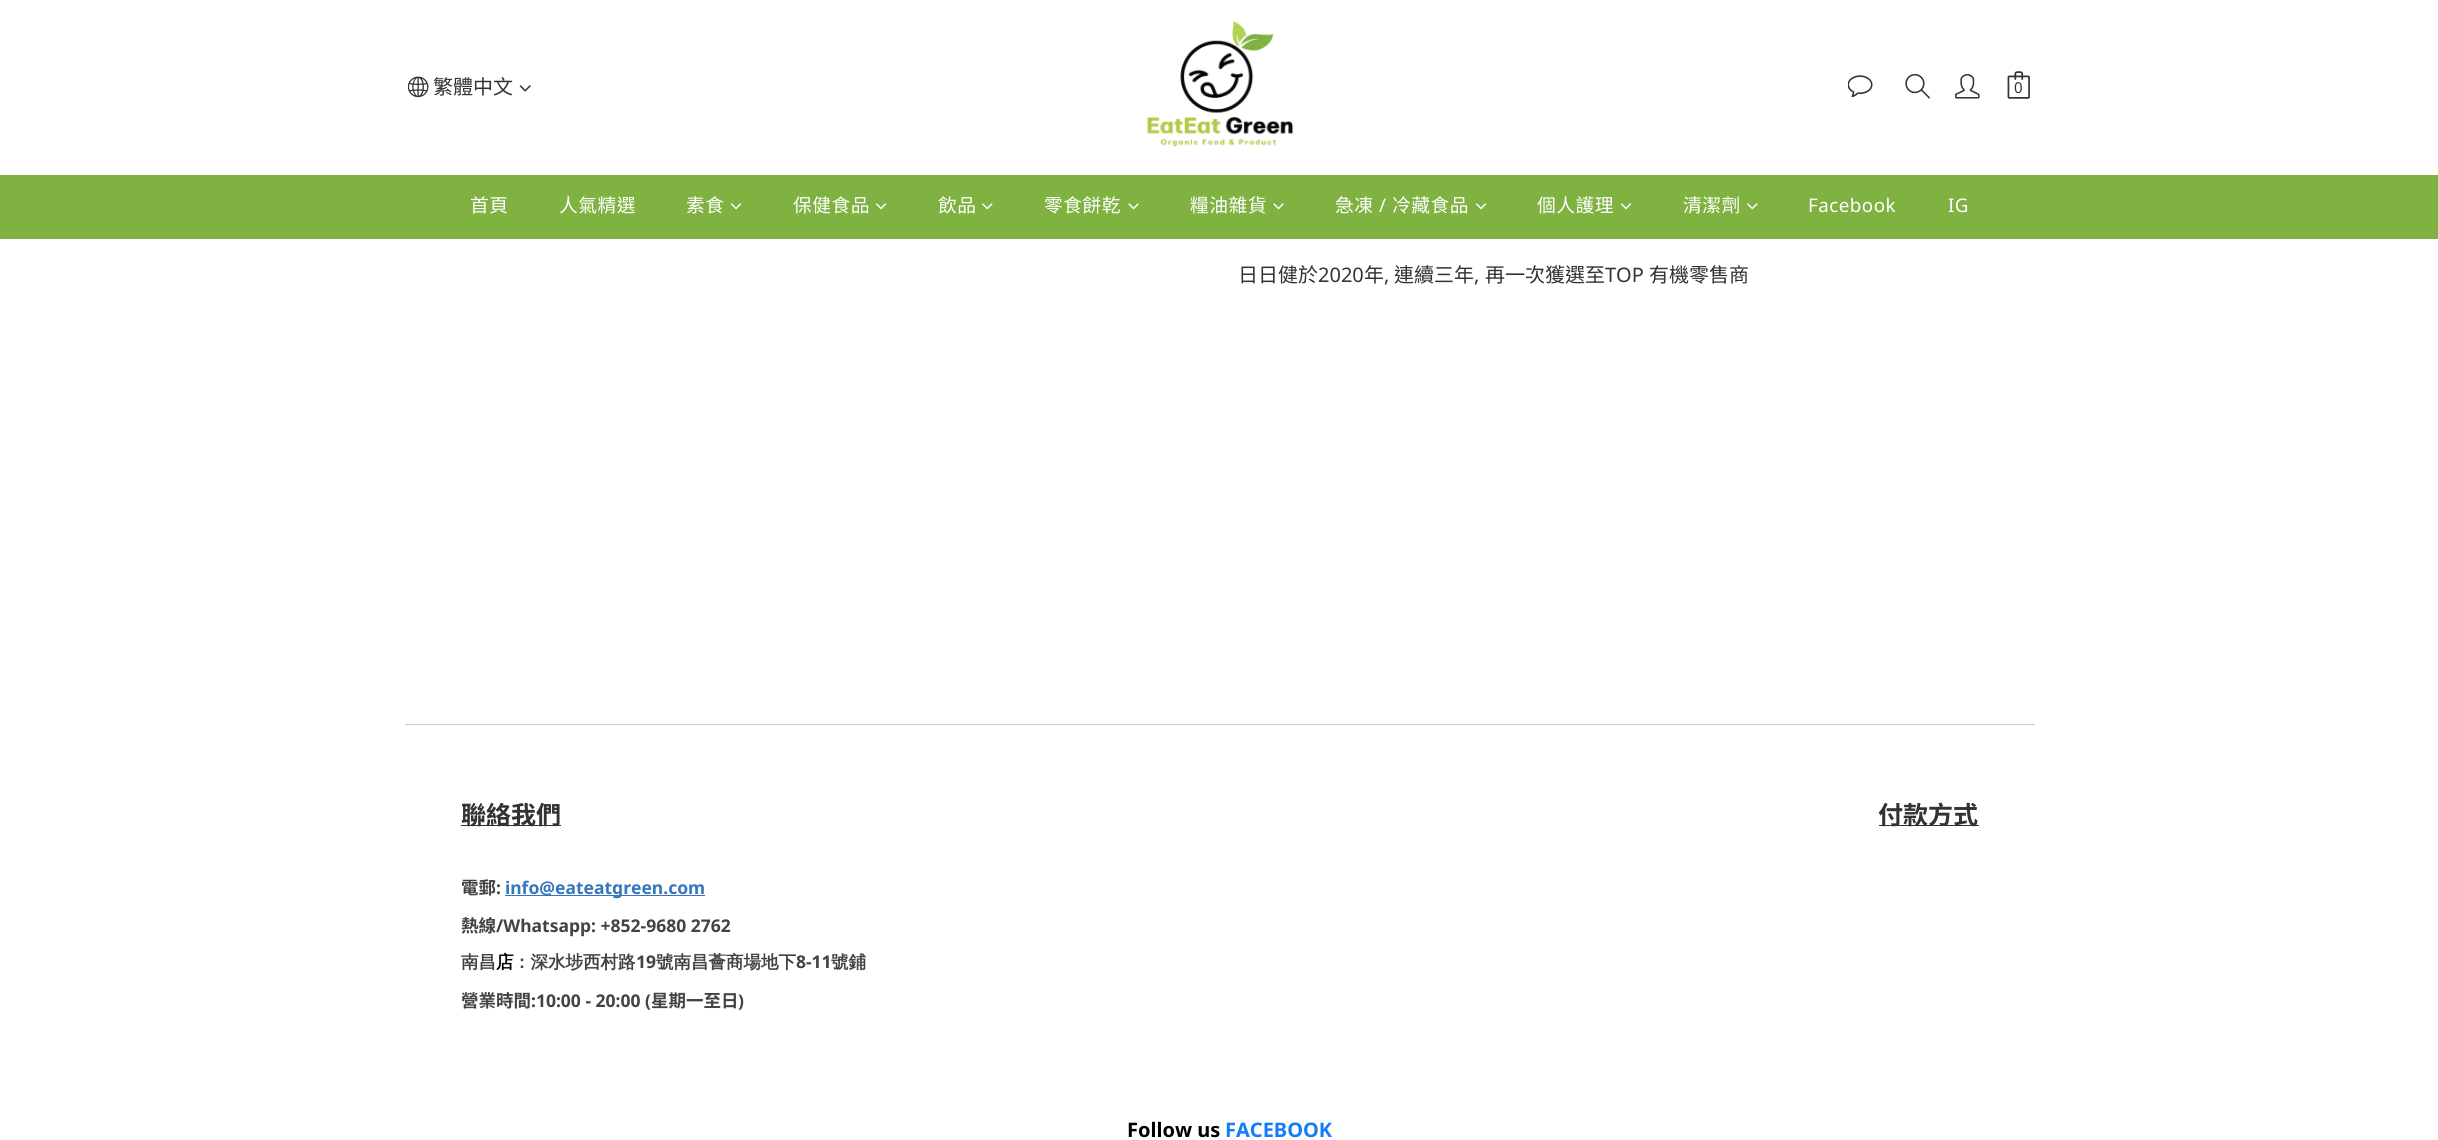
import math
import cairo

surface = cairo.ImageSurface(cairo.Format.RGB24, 2438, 1140)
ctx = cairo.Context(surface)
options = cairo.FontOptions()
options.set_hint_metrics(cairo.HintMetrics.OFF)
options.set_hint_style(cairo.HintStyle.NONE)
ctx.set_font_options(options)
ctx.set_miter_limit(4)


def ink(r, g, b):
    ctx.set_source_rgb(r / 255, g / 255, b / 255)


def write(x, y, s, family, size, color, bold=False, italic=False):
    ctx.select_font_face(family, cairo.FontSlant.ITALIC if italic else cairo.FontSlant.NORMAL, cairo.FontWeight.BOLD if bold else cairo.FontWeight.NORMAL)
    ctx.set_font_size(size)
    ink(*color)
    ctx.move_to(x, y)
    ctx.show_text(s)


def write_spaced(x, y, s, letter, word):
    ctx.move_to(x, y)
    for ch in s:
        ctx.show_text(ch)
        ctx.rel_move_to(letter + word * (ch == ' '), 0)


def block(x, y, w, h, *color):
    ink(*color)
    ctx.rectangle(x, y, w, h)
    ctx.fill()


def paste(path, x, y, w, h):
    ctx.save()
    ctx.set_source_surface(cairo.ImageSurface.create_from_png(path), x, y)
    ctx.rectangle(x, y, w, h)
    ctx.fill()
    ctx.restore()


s1 = dict(family="Noto Sans TC", size=20, color=(51, 51, 51))
s2 = dict(family="Noto Sans", size=15, color=(51, 51, 51))
s3 = dict(family="Noto Sans", size=20, color=(51, 51, 51))
s4 = dict(family="Noto Sans TC", size=25, color=(51, 51, 51), bold=True)
s5 = dict(family="Noto Sans TC", size=17.5, color=(67, 67, 67), bold=True)
s6 = dict(family="Noto Sans", size=17.5, color=(67, 67, 67), bold=True)
s7 = dict(family="Noto Sans", size=17.5, color=(53, 118, 190), bold=True)
s8 = dict(family="WenQuanYi Zen Hei", size=17.5, color=(67, 67, 67), bold=True)
s9 = dict(family="WenQuanYi Zen Hei", size=17.5, color=(0, 0, 0), bold=True)
s10 = dict(family="Noto Sans", size=20, color=(0, 0, 0), bold=True)
s11 = dict(family="Noto Sans", size=20, color=(22, 124, 248), bold=True)

ink(255, 255, 255)
ctx.paint()
paste("pic1.png", 408, 76, 21, 22)
write(433, 94, "繁體中文", **s1)
paste("pic2.png", 519, 85, 12, 7)
paste("pic3.png", 1147, 20, 147, 127)
paste("pic4.png", 1848, 75, 25, 23)
paste("pic5.png", 1905, 74, 25, 25)
paste("pic6.png", 1955, 74, 25, 25)
paste("pic7.png", 2007, 71, 23, 28)
write(2014, 93, "0", **s2)
block(0, 175, 2438, 64, 127, 178, 65)
ctx.select_font_face("Noto Sans TC")
ctx.set_font_size(18.75)
ink(255, 255, 255)
write_spaced(470, 212, "首頁", 0.5, 0)
write_spaced(559, 212, "人氣精選", 0.5, 0)
write_spaced(686, 212, "素食", 0.5, 0)
paste("pic8.png", 730, 203, 12, 7)
write_spaced(793, 212, "保健食品", 0.5, 0)
paste("pic8.png", 875, 203, 12, 7)
write_spaced(938, 212, "飲品", 0.5, 0)
paste("pic9.png", 982, 203, 11, 7)
write_spaced(1044, 212, "零食餅乾", 0.5, 0)
paste("pic10.png", 1128, 203, 11, 7)
write_spaced(1190, 212, "糧油雜貨", 0.5, 0)
paste("pic10.png", 1273, 203, 11, 7)
write_spaced(1335, 212, "急凍", 0.5, 0)
ctx.select_font_face("Noto Sans")
write_spaced(1379, 212, "/", 0.5, 0)
ctx.select_font_face("Noto Sans TC")
write_spaced(1392, 212, "冷藏食品", 0.5, 0)
paste("pic8.png", 1475, 203, 12, 7)
write_spaced(1537, 212, "個人護理", 0.5, 0)
paste("pic8.png", 1620, 203, 12, 7)
write_spaced(1683, 212, "清潔劑", 0.5, 0)
paste("pic9.png", 1747, 203, 11, 7)
ctx.select_font_face("Noto Sans")
write_spaced(1808, 212, "Facebook", 0.5, 0)
write_spaced(1948, 212, "IG", 0.5, 0)
write(1238, 282, "日日健於", **s1)
write(1318, 282, "2020", **s3)
write(1364, 282, "年", **s1)
write(1384, 282, ",", **s3)
write(1394, 282, "連續三年", **s1)
write(1474, 282, ",", **s3)
write(1485, 282, "再一次獲選至", **s1)
write(1605, 282, "TOP", **s3)
write(1649, 282, "有機零售商", **s1)
block(405, 724, 1630, 1, 204, 204, 204)
block(461, 825, 100, 1, 51, 51, 51)
write(461, 824, "聯絡我們", **s4)
block(1879, 825, 100, 1, 51, 51, 51)
write(1878, 824, "付款方式", **s4)
write(461, 894, "電郵", **s5)
write(496, 894, ":", **s6)
block(505, 895, 200, 1, 53, 118, 190)
write(505, 894, "info@eateatgreen.com", **s7)
write(461, 932, "熱線", **s5)
write(496, 932, "/Whatsapp: +852-9680 2762", **s6)
write(461, 968, "南昌", **s8)
write(496, 968, "店", **s9)
write(513, 968, "：深水埗西村路", **s8)
write(636, 968, "19", **s6)
write(656, 968, "號南昌薈商場地下", **s8)
write(796, 968, "8-11", **s6)
write(831, 968, "號鋪", **s8)
write(461, 1007, "營業時間", **s5)
write(531, 1007, ":10:00 - 20:00 (", **s6)
write(651, 1007, "星期一至日", **s5)
write(738, 1007, ")", **s6)
write(1127, 1137, "Follow us", **s10)
write(1225, 1137, "FACEBOOK", **s11)
surface.write_to_png("screenshot.png")
